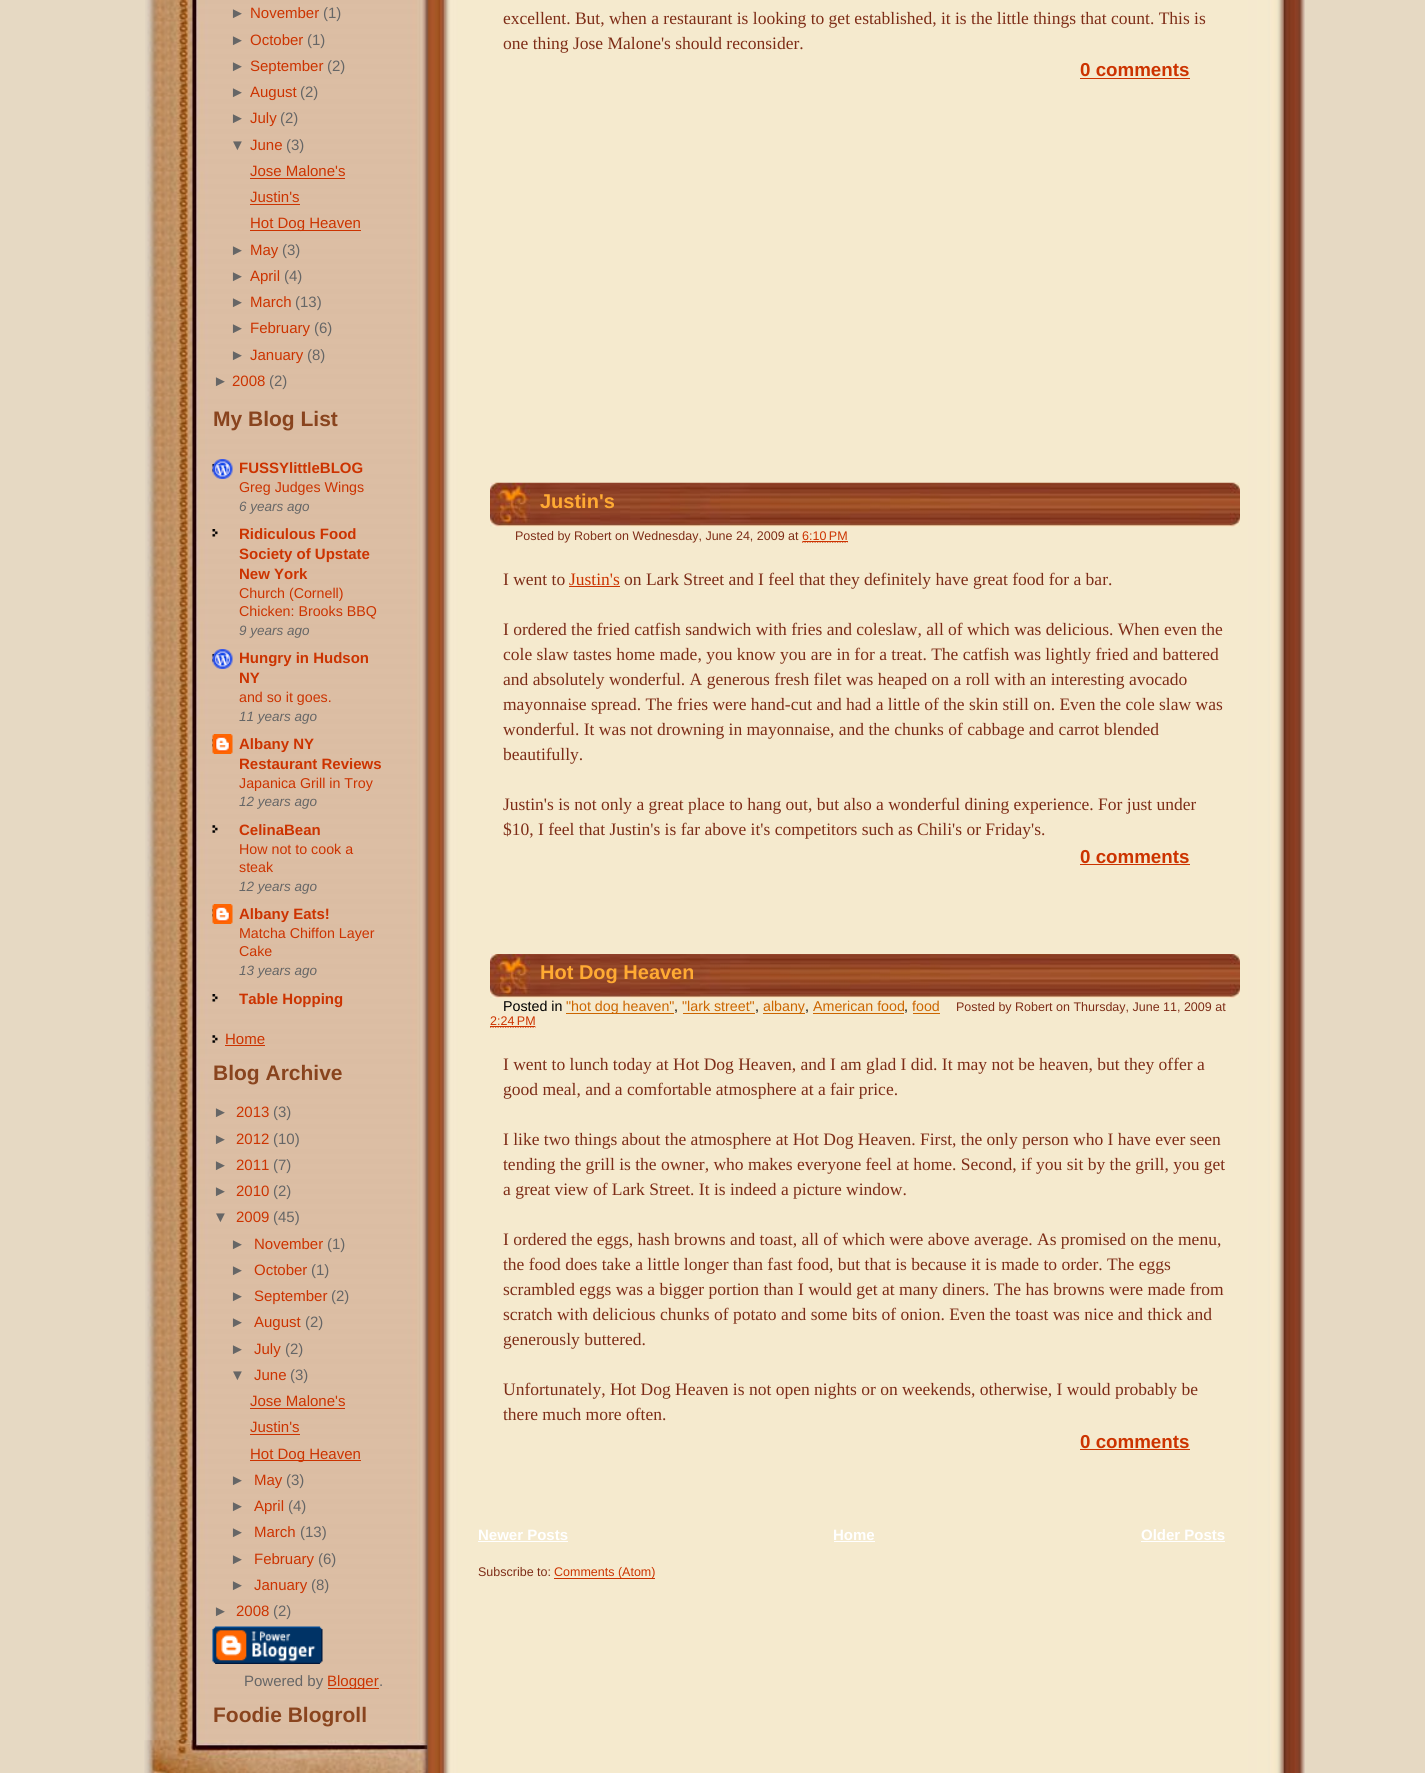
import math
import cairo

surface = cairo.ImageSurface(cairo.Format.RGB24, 1425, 1773)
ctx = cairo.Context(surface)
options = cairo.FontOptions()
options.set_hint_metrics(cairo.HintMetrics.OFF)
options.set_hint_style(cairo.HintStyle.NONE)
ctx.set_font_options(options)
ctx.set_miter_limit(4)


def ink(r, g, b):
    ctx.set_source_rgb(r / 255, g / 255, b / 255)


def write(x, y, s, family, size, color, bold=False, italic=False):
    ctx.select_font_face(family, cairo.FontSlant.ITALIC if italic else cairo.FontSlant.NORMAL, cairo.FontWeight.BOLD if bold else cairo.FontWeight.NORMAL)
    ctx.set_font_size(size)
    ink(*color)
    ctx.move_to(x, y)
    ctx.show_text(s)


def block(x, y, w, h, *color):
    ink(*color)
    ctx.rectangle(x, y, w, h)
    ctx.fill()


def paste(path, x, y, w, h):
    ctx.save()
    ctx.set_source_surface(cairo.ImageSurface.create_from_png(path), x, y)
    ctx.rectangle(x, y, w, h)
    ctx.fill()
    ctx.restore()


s1 = dict(family="Liberation Sans", size=15, color=(102, 102, 102))
s2 = dict(family="Liberation Sans", size=15, color=(204, 51, 0))
s3 = dict(family="Liberation Sans", size=21, color=(137, 68, 30), bold=True)
s4 = dict(family="Liberation Sans", size=15, color=(204, 51, 0), bold=True)
s5 = dict(family="Liberation Sans", size=14.25, color=(204, 51, 0))
s6 = dict(family="Liberation Sans", size=13.5, color=(102, 102, 102), italic=True)
s7 = dict(family="Liberation Serif", size=17.5, color=(126, 45, 23))
s8 = dict(family="Liberation Sans", size=18.75, color=(204, 51, 0), bold=True)
s9 = dict(family="Liberation Sans", size=20, color=(255, 170, 51), bold=True)
s10 = dict(family="Liberation Sans", size=12.5, color=(126, 45, 23))
s11 = dict(family="Liberation Sans", size=12.5, color=(204, 51, 0))
s12 = dict(family="Liberation Serif", size=17.5, color=(204, 51, 0))
s13 = dict(family="Liberation Sans", size=14.25, color=(0, 0, 0))
s14 = dict(family="Liberation Sans", size=14.25, color=(204, 102, 0))
s15 = dict(family="Liberation Sans", size=15, color=(255, 255, 255), bold=True)

ink(230, 217, 195)
ctx.paint()
paste("pic1.png", 427, 0, 878, 1773)
paste("pic2.png", 145, 0, 283, 1773)
write(230, 18, "►", **s1)
write(250, 18, "November", **s2)
write(323, 18, "(1)", **s1)
write(230, 45, "►", **s1)
write(250, 45, "October", **s2)
write(307, 45, "(1)", **s1)
write(230, 71, "►", **s1)
write(250, 71, "September", **s2)
write(327, 71, "(2)", **s1)
write(230, 97, "►", **s1)
write(250, 97, "August", **s2)
write(300, 97, "(2)", **s1)
write(230, 123, "►", **s1)
write(250, 123, "July", **s2)
write(280, 123, "(2)", **s1)
write(230, 150, "▼", **s1)
write(250, 150, "June", **s2)
write(286, 150, "(3)", **s1)
write(250, 176, "Jose Malone's", **s2)
block(250, 178, 95, 1, 204, 51, 0)
write(250, 202, "Justin's", **s2)
block(250, 204, 50, 1, 204, 51, 0)
block(250, 230, 111, 1, 204, 51, 0)
write(250, 228, "Hot Dog Heaven", **s2)
write(230, 255, "►", **s1)
write(250, 255, "May", **s2)
write(282, 255, "(3)", **s1)
write(230, 281, "►", **s1)
write(250, 281, "April", **s2)
write(284, 281, "(4)", **s1)
write(230, 307, "►", **s1)
write(250, 307, "March", **s2)
write(295, 307, "(13)", **s1)
write(230, 333, "►", **s1)
write(250, 333, "February", **s2)
write(314, 333, "(6)", **s1)
write(230, 360, "►", **s1)
write(250, 360, "January", **s2)
write(307, 360, "(8)", **s1)
write(213, 386, "►", **s1)
write(232, 386, "2008", **s2)
write(269, 386, "(2)", **s1)
write(213, 426, "My Blog List", **s3)
paste("pic3.png", 212, 464, 4, 8)
paste("pic4.png", 212, 459, 21, 20)
write(239, 473, "FUSSYlittleBLOG", **s4)
write(239, 492, "Greg Judges Wings", **s5)
write(239, 511, "6 years ago", **s6)
paste("pic5.png", 212, 529, 6, 8)
write(239, 539, "Ridiculous Food", **s4)
write(239, 559, "Society of Upstate", **s4)
write(239, 579, "New York", **s4)
write(239, 598, "Church (Cornell)", **s5)
write(239, 616, "Chicken: Brooks BBQ", **s5)
write(239, 635, "9 years ago", **s6)
paste("pic6.png", 212, 654, 4, 8)
paste("pic7.png", 212, 649, 21, 20)
write(239, 663, "Hungry in Hudson", **s4)
write(239, 683, "NY", **s4)
write(239, 702, "and so it goes.", **s5)
write(239, 721, "11 years ago", **s6)
paste("pic8.png", 212, 739, 1, 8)
paste("pic9.png", 212, 734, 21, 20)
write(239, 749, "Albany NY", **s4)
write(239, 769, "Restaurant Reviews", **s4)
write(239, 788, "Japanica Grill in Troy", **s5)
write(239, 806, "12 years ago", **s6)
paste("pic10.png", 212, 825, 6, 8)
write(239, 835, "CelinaBean", **s4)
write(239, 854, "How not to cook a", **s5)
write(239, 872, "steak", **s5)
write(239, 891, "12 years ago", **s6)
paste("pic8.png", 212, 909, 1, 8)
paste("pic11.png", 212, 904, 21, 20)
write(239, 919, "Albany Eats!", **s4)
write(239, 938, "Matcha Chiffon Layer", **s5)
write(239, 956, "Cake", **s5)
write(239, 975, "13 years ago", **s6)
paste("pic5.png", 212, 994, 6, 8)
write(239, 1004, "Table Hopping", **s4)
paste("pic12.png", 212, 1035, 6, 8)
write(225, 1044, "Home", **s2)
block(225, 1045, 40, 1, 204, 51, 0)
write(213, 1080, "Blog Archive", **s3)
write(213, 1117, "►", **s1)
write(236, 1117, "2013", **s2)
write(273, 1117, "(3)", **s1)
write(213, 1144, "►", **s1)
write(236, 1144, "2012", **s2)
write(273, 1144, "(10)", **s1)
write(213, 1170, "►", **s1)
write(236, 1170, "2011", **s2)
write(273, 1170, "(7)", **s1)
write(213, 1196, "►", **s1)
write(236, 1196, "2010", **s2)
write(273, 1196, "(2)", **s1)
write(213, 1222, "▼", **s1)
write(236, 1222, "2009", **s2)
write(273, 1222, "(45)", **s1)
write(230, 1249, "►", **s1)
write(254, 1249, "November", **s2)
write(327, 1249, "(1)", **s1)
write(230, 1275, "►", **s1)
write(254, 1275, "October", **s2)
write(311, 1275, "(1)", **s1)
write(230, 1301, "►", **s1)
write(254, 1301, "September", **s2)
write(331, 1301, "(2)", **s1)
write(230, 1327, "►", **s1)
write(254, 1327, "August", **s2)
write(305, 1327, "(2)", **s1)
write(230, 1354, "►", **s1)
write(254, 1354, "July", **s2)
write(285, 1354, "(2)", **s1)
write(230, 1380, "▼", **s1)
write(254, 1380, "June", **s2)
write(290, 1380, "(3)", **s1)
write(250, 1406, "Jose Malone's", **s2)
block(250, 1408, 95, 1, 204, 51, 0)
write(250, 1432, "Justin's", **s2)
block(250, 1434, 50, 1, 204, 51, 0)
block(250, 1460, 111, 1, 204, 51, 0)
write(250, 1459, "Hot Dog Heaven", **s2)
write(230, 1485, "►", **s1)
write(254, 1485, "May", **s2)
write(286, 1485, "(3)", **s1)
write(230, 1511, "►", **s1)
write(254, 1511, "April", **s2)
write(288, 1511, "(4)", **s1)
write(230, 1537, "►", **s1)
write(254, 1537, "March", **s2)
write(300, 1537, "(13)", **s1)
write(230, 1564, "►", **s1)
write(254, 1564, "February", **s2)
write(318, 1564, "(6)", **s1)
write(230, 1590, "►", **s1)
write(254, 1590, "January", **s2)
write(311, 1590, "(8)", **s1)
write(213, 1616, "►", **s1)
write(236, 1616, "2008", **s2)
write(273, 1616, "(2)", **s1)
paste("pic13.png", 212, 1626, 111, 38)
write(244, 1686, "Powered by", **s1)
block(328, 1688, 51, 1, 204, 51, 0)
write(327, 1686, "Blogger", **s2)
write(379, 1686, ".", **s1)
write(213, 1722, "Foodie Blogroll", **s3)
paste("pic14.png", 144, 1740, 284, 33)
write(503, 24, "excellent. But, when a restaurant is looking to get established, it is the little things that count. This is", **s7)
write(503, 49, "one thing Jose Malone's should reconsider.", **s7)
write(1080, 76, "0 comments", **s8)
block(1080, 78, 110, 1, 204, 51, 0)
paste("pic15.png", 490, 482, 750, 45)
write(540, 508, "Justin's", **s9)
write(515, 540, "Posted by Robert on Wednesday, June 24, 2009 at", **s10)
write(802, 540, "6:10 PM", **s11)
ctx.new_path()
ctx.move_to(802, 542)
ctx.line_to(847.5, 542)
ctx.set_line_width(1.2)
ctx.set_dash([1.25, 1.25])
ctx.stroke()
block(803, 541, 45, 1, 204, 51, 0)
write(503, 585, "I went to", **s7)
write(569, 585, "Justin's", **s12)
block(569, 586, 51, 1, 204, 51, 0)
write(624, 585, "on Lark Street and I feel that they definitely have great food for a bar.", **s7)
write(503, 635, "I ordered the fried catfish sandwich with fries and coleslaw, all of which was delicious. When even the", **s7)
write(503, 660, "cole slaw tastes home made, you know you are in for a treat. The catfish was lightly fried and battered", **s7)
write(503, 685, "and absolutely wonderful. A generous fresh filet was heaped on a roll with an interesting avocado", **s7)
write(503, 710, "mayonnaise spread. The fries were hand-cut and had a little of the skin still on. Even the cole slaw was", **s7)
write(503, 735, "wonderful. It was not drowning in mayonnaise, and the chunks of cabbage and carrot blended", **s7)
write(503, 760, "beautifully.", **s7)
write(503, 810, "Justin's is not only a great place to hang out, but also a wonderful dining experience. For just under", **s7)
write(503, 835, "$10, I feel that Justin's is far above it's competitors such as Chili's or Friday's.", **s7)
write(1080, 863, "0 comments", **s8)
block(1080, 864, 110, 1, 204, 51, 0)
paste("pic16.png", 490, 954, 750, 44)
write(540, 979, "Hot Dog Heaven", **s9)
write(503, 1011, "Posted in", **s13)
block(566, 1013, 108, 1, 204, 102, 0)
write(566, 1011, "\"hot dog heaven\"", **s14)
write(674, 1011, ",", **s13)
write(682, 1011, "\"lark street\"", **s14)
write(755, 1011, ",", **s13)
block(683, 1013, 72, 1, 204, 102, 0)
block(763, 1013, 42, 1, 204, 102, 0)
write(763, 1011, "albany", **s14)
write(805, 1011, ",", **s13)
write(813, 1011, "American food", **s14)
write(904, 1011, ",", **s13)
block(813, 1013, 91, 1, 204, 102, 0)
block(913, 1013, 27, 1, 204, 102, 0)
write(912, 1011, "food", **s14)
write(956, 1011, "Posted by Robert on Thursday, June 11, 2009 at", **s10)
write(490, 1025, "2:24 PM", **s11)
ctx.new_path()
ctx.move_to(490, 1027)
ctx.line_to(535.5, 1027)
ctx.stroke()
block(490, 1026, 45, 1, 204, 51, 0)
write(503, 1070, "I went to lunch today at Hot Dog Heaven, and I am glad I did. It may not be heaven, but they offer a", **s7)
write(503, 1095, "good meal, and a comfortable atmosphere at a fair price.", **s7)
write(503, 1145, "I like two things about the atmosphere at Hot Dog Heaven. First, the only person who I have ever seen", **s7)
write(503, 1170, "tending the grill is the owner, who makes everyone feel at home. Second, if you sit by the grill, you get", **s7)
write(503, 1195, "a great view of Lark Street. It is indeed a picture window.", **s7)
write(503, 1245, "I ordered the eggs, hash browns and toast, all of which were above average. As promised on the menu,", **s7)
write(503, 1270, "the food does take a little longer than fast food, but that is because it is made to order. The eggs", **s7)
write(503, 1295, "scrambled eggs was a bigger portion than I would get at many diners. The has browns were made from", **s7)
write(503, 1320, "scratch with delicious chunks of potato and some bits of onion. Even the toast was nice and thick and", **s7)
write(503, 1345, "generously buttered.", **s7)
write(503, 1395, "Unfortunately, Hot Dog Heaven is not open nights or on weekends, otherwise, I would probably be", **s7)
write(503, 1420, "there much more often.", **s7)
write(1080, 1448, "0 comments", **s8)
block(1080, 1449, 110, 1, 204, 51, 0)
write(478, 1540, "Newer Posts", **s15)
block(478, 1541, 90, 1, 255, 255, 255)
write(833, 1540, "Home", **s15)
block(834, 1541, 41, 1, 255, 255, 255)
write(1141, 1540, "Older Posts", **s15)
block(1141, 1541, 84, 1, 255, 255, 255)
write(478, 1576, "Subscribe to:", **s10)
block(554, 1578, 101, 1, 204, 51, 0)
write(554, 1576, "Comments (Atom)", **s11)
surface.write_to_png("screenshot.png")
